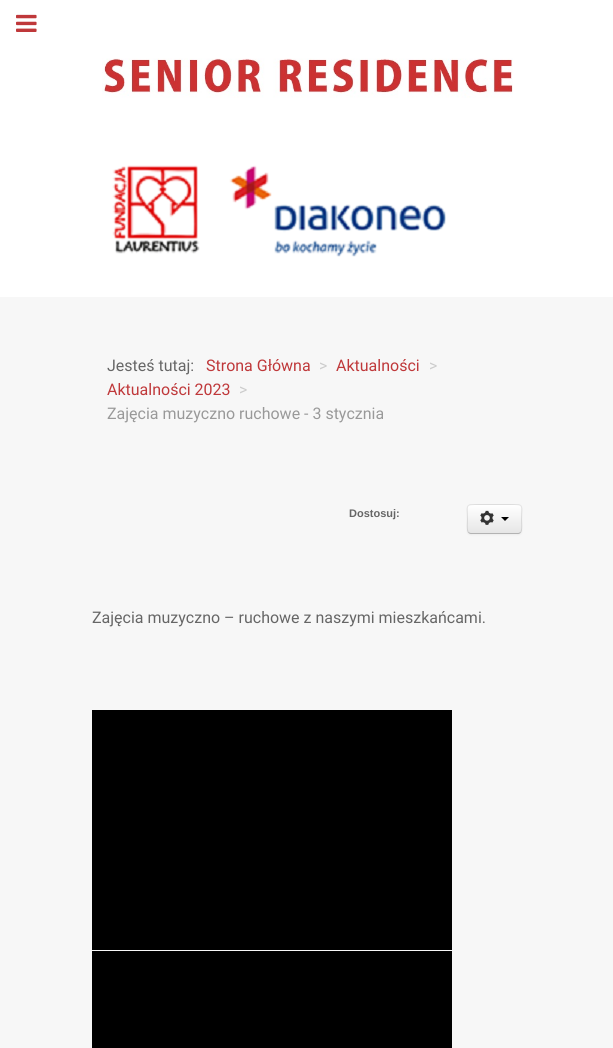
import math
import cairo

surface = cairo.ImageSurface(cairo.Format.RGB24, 613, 1048)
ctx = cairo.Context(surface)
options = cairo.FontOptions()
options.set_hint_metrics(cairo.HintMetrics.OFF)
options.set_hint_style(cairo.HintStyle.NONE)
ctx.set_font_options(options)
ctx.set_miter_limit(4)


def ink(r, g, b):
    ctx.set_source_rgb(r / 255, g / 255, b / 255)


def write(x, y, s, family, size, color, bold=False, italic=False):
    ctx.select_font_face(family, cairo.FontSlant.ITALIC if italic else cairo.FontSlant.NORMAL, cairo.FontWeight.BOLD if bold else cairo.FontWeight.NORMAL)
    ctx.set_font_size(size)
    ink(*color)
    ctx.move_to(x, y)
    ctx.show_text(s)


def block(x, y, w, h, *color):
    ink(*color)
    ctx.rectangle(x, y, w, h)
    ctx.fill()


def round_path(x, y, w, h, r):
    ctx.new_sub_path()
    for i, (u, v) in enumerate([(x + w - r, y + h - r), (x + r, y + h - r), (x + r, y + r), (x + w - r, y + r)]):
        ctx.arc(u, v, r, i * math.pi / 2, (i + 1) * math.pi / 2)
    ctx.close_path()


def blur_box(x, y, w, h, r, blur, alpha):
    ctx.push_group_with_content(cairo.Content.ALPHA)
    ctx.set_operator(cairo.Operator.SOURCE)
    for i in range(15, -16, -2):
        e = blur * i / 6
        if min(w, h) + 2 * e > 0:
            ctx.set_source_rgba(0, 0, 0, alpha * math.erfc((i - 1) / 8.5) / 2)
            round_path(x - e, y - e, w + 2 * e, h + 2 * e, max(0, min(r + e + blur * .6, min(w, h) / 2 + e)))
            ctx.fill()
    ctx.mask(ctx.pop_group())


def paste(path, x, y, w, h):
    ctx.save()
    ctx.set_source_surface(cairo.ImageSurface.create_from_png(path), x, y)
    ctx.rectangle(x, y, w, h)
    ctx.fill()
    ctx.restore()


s1 = dict(family="Roboto", size=16, color=(102, 102, 102))
s2 = dict(family="Roboto", size=16, color=(191, 56, 58))
s3 = dict(family="Roboto", size=16, color=(204, 204, 204))
s4 = dict(family="Roboto", size=16, color=(153, 153, 153))
s5 = dict(family="Liberation Sans", size=11, color=(102, 102, 102), bold=True)

ink(255, 255, 255)
ctx.paint()
paste("pic1.png", 16, 14, 21, 18)
paste("pic2.png", 102, 58, 411, 40)
paste("pic3.png", 112, 165, 334, 92)
block(0, 297, 613, 751, 247, 247, 247)
write(107, 371, "Jesteś tutaj:", **s1)
write(206, 371, "Strona Główna", **s2)
write(319, 371, ">", **s3)
write(336, 371, "Aktualności", **s2)
write(429, 371, ">", **s3)
write(107, 395, "Aktualności 2023", **s2)
write(239, 395, ">", **s3)
write(107, 419, "Zajęcia muzyczno ruchowe - 3 stycznia", **s4)
write(349, 517, "Dostosuj:", **s5)
write(92, 623, "Zajęcia muzyczno – ruchowe z naszymi mieszkańcami.", **s1)
block(92, 710, 360, 240, 0, 0, 0)
block(92, 951, 360, 97, 0, 0, 0)
ink(0, 0, 0)
blur_box(467, 505, 55, 30, 4, 1, 0.05)
ink(245, 245, 245)
round_path(467, 504, 55, 30, 4)
ctx.fill()
ctx.save()
round_path(467, 504, 55, 30, 4)
ctx.clip()
gradient = cairo.LinearGradient(495, 505, 495, 533)
gradient.add_color_stop_rgba(0, 1, 1, 1, 1)
gradient.add_color_stop_rgba(1, 0.902, 0.902, 0.902, 1)
ctx.set_source(gradient)
ctx.rectangle(467, 505, 55, 28)
ctx.fill()
ctx.restore()
ink(255, 255, 255)
ctx.new_path()
ctx.move_to(471, 506)
ctx.line_to(518, 506)
ctx.curve_to(520, 506, 521, 507, 521, 509)
ctx.curve_to(521, 503, 515, 505, 510, 505)
ctx.line_to(479, 505)
ctx.curve_to(474, 505, 468, 503, 468, 509)
ctx.curve_to(468, 507, 469, 506, 471, 506)
ctx.close_path()
ctx.fill()
ctx.new_path()
ctx.move_to(520.5, 532.5)
ctx.curve_to(520, 533, 519, 533.5, 518, 533.5)
ctx.line_to(471, 533.5)
ctx.curve_to(470, 533.5, 469, 533, 468.5, 532.5)
ink(179, 179, 179)
ctx.set_line_width(1)
ctx.stroke()
ctx.new_path()
ctx.move_to(468.5, 532.5)
ctx.curve_to(466.5, 530.5, 467.5, 522, 467.5, 519)
ctx.curve_to(467.5, 504.5, 464.5, 504.5, 479, 504.5)
ctx.line_to(510, 504.5)
ctx.curve_to(524.5, 504.5, 521.5, 504.5, 521.5, 519)
ctx.curve_to(521.5, 522, 522.5, 530.5, 520.5, 532.5)
ctx.set_source_rgba(0, 0, 0, 0.1)
ctx.stroke()
paste("pic4.png", 480, 510, 14, 15)
ink(0, 0, 0)
ctx.new_path()
ctx.move_to(501, 517)
ctx.line_to(509, 517)
ctx.line_to(505, 521)
ctx.close_path()
ctx.fill()
surface.write_to_png("screenshot.png")
